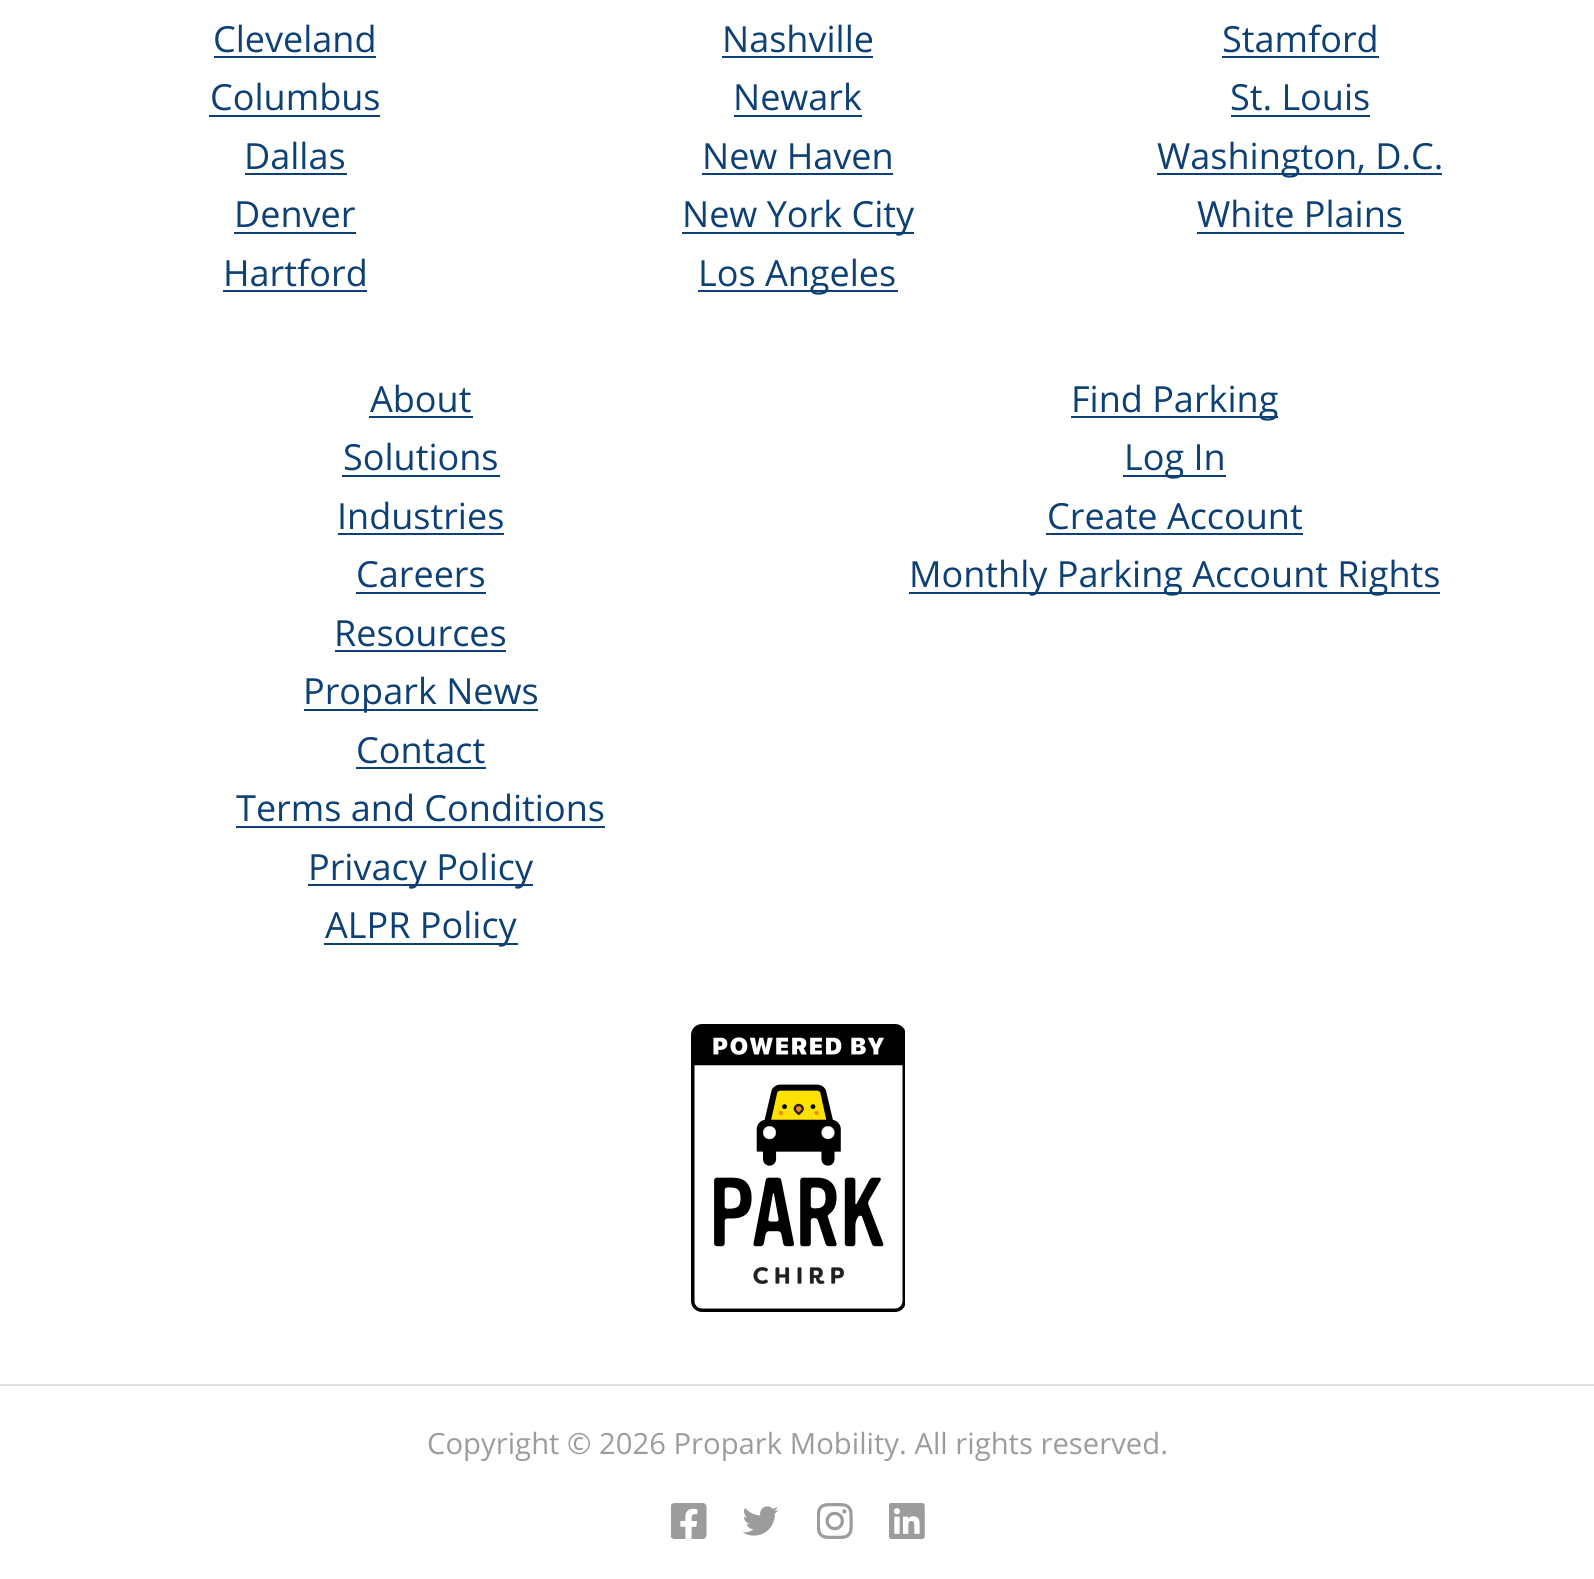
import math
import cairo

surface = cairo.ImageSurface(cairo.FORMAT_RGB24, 1594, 1579)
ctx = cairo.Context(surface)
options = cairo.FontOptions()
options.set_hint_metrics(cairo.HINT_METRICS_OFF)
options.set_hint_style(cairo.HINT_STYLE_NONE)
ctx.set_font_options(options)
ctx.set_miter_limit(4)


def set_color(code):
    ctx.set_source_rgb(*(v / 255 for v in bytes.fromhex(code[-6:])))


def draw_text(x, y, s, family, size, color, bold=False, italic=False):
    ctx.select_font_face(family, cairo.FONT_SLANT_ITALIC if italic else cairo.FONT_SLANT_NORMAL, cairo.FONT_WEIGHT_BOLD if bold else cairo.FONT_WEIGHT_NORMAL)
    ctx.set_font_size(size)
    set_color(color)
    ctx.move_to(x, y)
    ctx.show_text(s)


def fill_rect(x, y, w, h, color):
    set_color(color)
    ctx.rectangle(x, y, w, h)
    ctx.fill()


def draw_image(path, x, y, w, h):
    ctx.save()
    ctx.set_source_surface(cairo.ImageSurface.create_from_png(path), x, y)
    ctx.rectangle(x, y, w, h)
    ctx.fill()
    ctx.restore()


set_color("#ffffff")
ctx.paint()
draw_text(213, 52, "Cleveland", "Open Sans", 36, "#0d4075")
fill_rect(214, 56, 162, 2, "#0d4075")
draw_text(722, 52, "Nashville", "Open Sans", 36, "#0d4075")
fill_rect(722, 56, 151, 2, "#0d4075")
draw_text(1222, 52, "Stamford", "Open Sans", 36, "#0d4075")
fill_rect(1222, 56, 157, 2, "#0d4075")
draw_text(210, 110, "Columbus", "Open Sans", 36, "#0d4075")
fill_rect(209, 115, 171, 2, "#0d4075")
draw_text(733, 110, "Newark", "Open Sans", 36, "#0d4075")
fill_rect(734, 115, 128, 2, "#0d4075")
draw_text(1230, 110, "St. Louis", "Open Sans", 36, "#0d4075")
fill_rect(1231, 115, 139, 2, "#0d4075")
draw_text(244, 169, "Dallas", "Open Sans", 36, "#0d4075")
fill_rect(245, 173, 102, 2, "#0d4075")
draw_text(702, 169, "New Haven", "Open Sans", 36, "#0d4075")
fill_rect(702, 173, 191, 2, "#0d4075")
fill_rect(1157, 173, 285, 2, "#0d4075")
draw_text(1157, 169, "Washington, D.C.", "Open Sans", 36, "#0d4075")
draw_text(234, 227, "Denver", "Open Sans", 36, "#0d4075")
fill_rect(234, 232, 122, 2, "#0d4075")
fill_rect(682, 232, 232, 2, "#0d4075")
draw_text(682, 227, "New York City", "Open Sans", 36, "#0d4075")
draw_text(1197, 227, "White Plains", "Open Sans", 36, "#0d4075")
fill_rect(1197, 232, 207, 2, "#0d4075")
draw_text(223, 286, "Hartford", "Open Sans", 36, "#0d4075")
fill_rect(223, 290, 144, 2, "#0d4075")
fill_rect(698, 290, 200, 2, "#0d4075")
draw_text(698, 286, "Los Angeles", "Open Sans", 36, "#0d4075")
draw_text(370, 412, "About", "Open Sans", 36, "#0d4075")
fill_rect(369, 416, 104, 2, "#0d4075")
draw_text(343, 470, "Solutions", "Open Sans", 36, "#0d4075")
fill_rect(342, 475, 158, 2, "#0d4075")
draw_text(337, 529, "Industries", "Open Sans", 36, "#0d4075")
fill_rect(338, 533, 166, 2, "#0d4075")
draw_text(356, 587, "Careers", "Open Sans", 36, "#0d4075")
fill_rect(356, 592, 130, 2, "#0d4075")
draw_text(334, 646, "Resources", "Open Sans", 36, "#0d4075")
fill_rect(335, 650, 171, 2, "#0d4075")
fill_rect(304, 709, 234, 2, "#0d4075")
draw_text(303, 704, "Propark News", "Open Sans", 36, "#0d4075")
draw_text(356, 763, "Contact", "Open Sans", 36, "#0d4075")
fill_rect(356, 767, 130, 2, "#0d4075")
draw_text(236, 821, "Terms and Conditions", "Open Sans", 36, "#0d4075")
fill_rect(236, 826, 369, 2, "#0d4075")
fill_rect(308, 884, 225, 2, "#0d4075")
draw_text(308, 880, "Privacy Policy", "Open Sans", 36, "#0d4075")
fill_rect(324, 943, 194, 2, "#0d4075")
draw_text(325, 938, "ALPR Policy", "Open Sans", 36, "#0d4075")
fill_rect(1071, 416, 207, 2, "#0d4075")
draw_text(1071, 412, "Find Parking", "Open Sans", 36, "#0d4075")
fill_rect(1123, 475, 103, 2, "#0d4075")
draw_text(1124, 470, "Log In", "Open Sans", 36, "#0d4075")
draw_text(1047, 529, "Create Account", "Open Sans", 36, "#0d4075")
fill_rect(1046, 533, 257, 2, "#0d4075")
fill_rect(909, 592, 531, 2, "#0d4075")
draw_text(909, 587, "Monthly Parking Account Rights", "Open Sans", 36, "#0d4075")
draw_image("assets/img1.png", 691, 1024, 214, 288)
fill_rect(0, 1384, 1594, 2, "#e0e0e0")
draw_text(427, 1454, "Copyright © 2026 Propark Mobility. All rights reserved.", "Open Sans", 29.25, "#9c9c9c")
draw_image("assets/img2.png", 671, 1503, 36, 36)
draw_image("assets/img3.png", 743, 1506, 36, 30)
draw_image("assets/img4.png", 817, 1503, 36, 36)
draw_image("assets/img5.png", 889, 1503, 36, 36)
surface.write_to_png("output.png")
